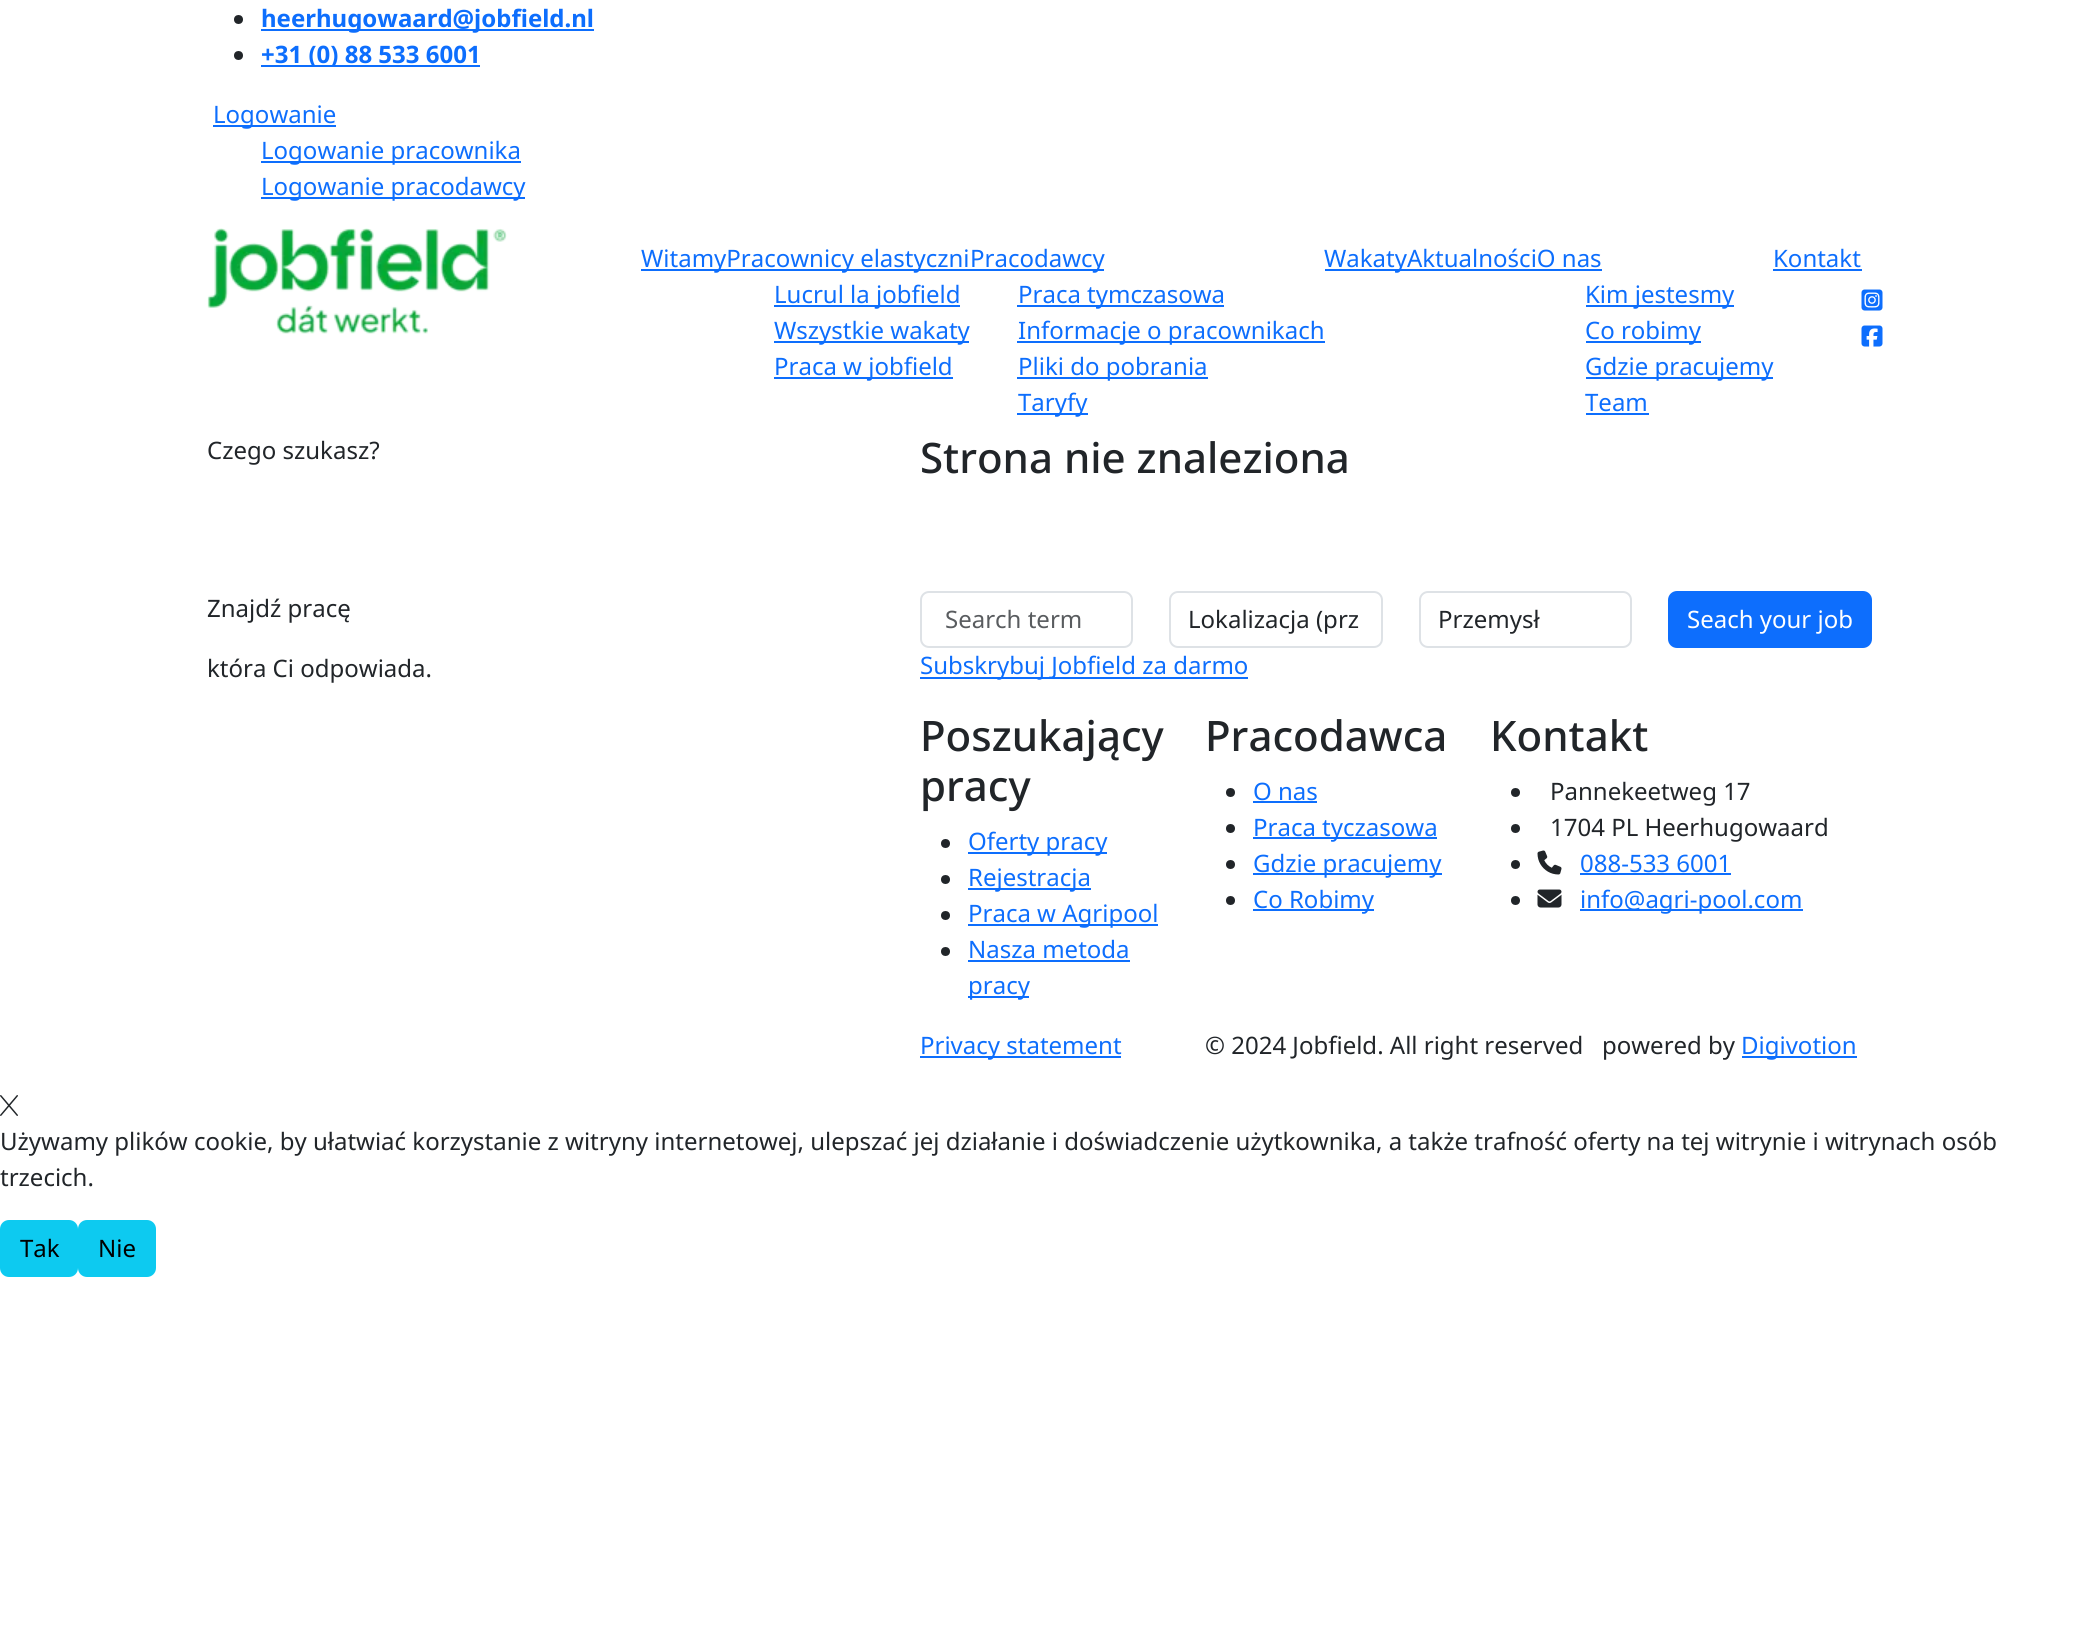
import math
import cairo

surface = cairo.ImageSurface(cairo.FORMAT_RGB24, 2087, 1627)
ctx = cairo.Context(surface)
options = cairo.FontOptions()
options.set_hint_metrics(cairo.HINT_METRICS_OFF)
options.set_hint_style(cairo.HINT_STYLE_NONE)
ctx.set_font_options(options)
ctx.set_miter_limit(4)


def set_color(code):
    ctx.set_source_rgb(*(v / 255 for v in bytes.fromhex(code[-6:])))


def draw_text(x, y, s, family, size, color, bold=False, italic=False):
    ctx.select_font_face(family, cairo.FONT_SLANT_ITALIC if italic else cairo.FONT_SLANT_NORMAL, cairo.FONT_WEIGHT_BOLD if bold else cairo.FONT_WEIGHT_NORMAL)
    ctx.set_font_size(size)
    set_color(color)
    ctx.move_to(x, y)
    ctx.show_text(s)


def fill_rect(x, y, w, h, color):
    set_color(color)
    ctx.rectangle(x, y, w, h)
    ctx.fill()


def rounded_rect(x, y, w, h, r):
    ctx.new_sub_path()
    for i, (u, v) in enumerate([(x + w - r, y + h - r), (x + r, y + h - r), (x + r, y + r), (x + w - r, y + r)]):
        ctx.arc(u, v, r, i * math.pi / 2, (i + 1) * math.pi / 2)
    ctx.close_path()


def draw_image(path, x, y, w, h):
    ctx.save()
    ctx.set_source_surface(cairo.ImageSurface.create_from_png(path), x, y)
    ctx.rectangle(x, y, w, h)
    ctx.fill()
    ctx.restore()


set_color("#ffffff")
ctx.paint()
set_color("#212529")
ctx.arc(238.5, 19.5, 4.5, 0, 2 * math.pi)
ctx.fill()
fill_rect(261, 29, 333, 2, "#0d6efd")
draw_text(261, 27, "heerhugowaard@jobfield.nl", "Noto Sans", 24, "#0d6efd", bold=True)
set_color("#212529")
ctx.new_path()
ctx.arc(238.5, 55.5, 4.5, 0, 2 * math.pi)
ctx.fill()
fill_rect(261, 65, 219, 2, "#0d6efd")
draw_text(261, 63, "+31 (0) 88 533 6001", "Noto Sans", 24, "#0d6efd", bold=True)
fill_rect(213, 125, 123, 2, "#0d6efd")
draw_text(213, 123, "Logowanie", "Noto Sans", 24, "#0d6efd")
fill_rect(261, 161, 260, 2, "#0d6efd")
draw_text(261, 159, "Logowanie pracownika", "Noto Sans", 24, "#0d6efd")
fill_rect(261, 197, 264, 2, "#0d6efd")
draw_text(261, 195, "Logowanie pracodawcy", "Noto Sans", 24, "#0d6efd")
draw_image("assets/img1.png", 207, 228, 300, 106)
fill_rect(641, 269, 463, 2, "#0d6efd")
draw_text(641, 267, "WitamyPracownicy elastyczni", "Noto Sans", 24, "#0d6efd")
draw_text(970, 267, "Pracodawcy", "Noto Sans", 24, "#0d6efd")
fill_rect(1017, 305, 207, 2, "#0d6efd")
draw_text(1018, 303, "Praca tymczasowa", "Noto Sans", 24, "#0d6efd")
fill_rect(1017, 341, 308, 2, "#0d6efd")
draw_text(1018, 339, "Informacje o pracownikach", "Noto Sans", 24, "#0d6efd")
fill_rect(1017, 377, 191, 2, "#0d6efd")
draw_text(1018, 375, "Pliki do pobrania", "Noto Sans", 24, "#0d6efd")
fill_rect(1017, 413, 71, 2, "#0d6efd")
draw_text(1018, 411, "Taryfy", "Noto Sans", 24, "#0d6efd")
fill_rect(1325, 269, 82, 2, "#0d6efd")
draw_text(1324, 267, "WakatyAktualnościO nas", "Noto Sans", 24, "#0d6efd")
draw_text(1773, 267, "Kontakt", "Noto Sans", 24, "#0d6efd")
fill_rect(1773, 269, 89, 2, "#0d6efd")
fill_rect(1407, 269, 195, 2, "#0d6efd")
fill_rect(774, 305, 186, 2, "#0d6efd")
draw_text(774, 303, "Lucrul la jobfield", "Noto Sans", 24, "#0d6efd")
fill_rect(774, 341, 195, 2, "#0d6efd")
draw_text(774, 339, "Wszystkie wakaty", "Noto Sans", 24, "#0d6efd")
fill_rect(774, 377, 179, 2, "#0d6efd")
draw_text(774, 375, "Praca w jobfield", "Noto Sans", 24, "#0d6efd")
fill_rect(1586, 305, 148, 2, "#0d6efd")
draw_text(1585, 303, "Kim jestesmy", "Noto Sans", 24, "#0d6efd")
fill_rect(1586, 341, 115, 2, "#0d6efd")
draw_text(1585, 339, "Co robimy", "Noto Sans", 24, "#0d6efd")
fill_rect(1586, 377, 187, 2, "#0d6efd")
draw_text(1585, 375, "Gdzie pracujemy", "Noto Sans", 24, "#0d6efd")
draw_text(1585, 411, "Team", "Noto Sans", 24, "#0d6efd")
fill_rect(1586, 413, 63, 2, "#0d6efd")
draw_image("assets/img2.png", 1861, 289, 22, 22)
draw_image("assets/img3.png", 1861, 325, 22, 22)
draw_text(207, 459, "Czego szukasz?", "Noto Sans", 24, "#212529")
draw_text(920, 473, "Strona nie znaleziona", "Noto Sans Medium", 42, "#212529")
draw_text(207, 617, "Znajdź pracę", "Noto Sans", 24, "#212529")
draw_text(207, 677, "która Ci odpowiada.", "Noto Sans", 24, "#212529")
rounded_rect(921, 592, 211, 55, 8)
set_color("#dee2e6")
ctx.stroke()
draw_text(945, 628, "Search term", "Noto Sans", 24, "#595c5f")
rounded_rect(1170, 592, 212, 55, 8)
set_color("#dee2e6")
ctx.stroke()
draw_text(1188, 628, "Lokalizacja (prz", "Noto Sans", 24, "#212529")
rounded_rect(1420, 592, 211, 55, 8)
set_color("#dee2e6")
ctx.stroke()
draw_text(1438, 628, "Przemysł", "Noto Sans", 24, "#212529")
set_color("#0d6efd")
rounded_rect(1669, 592, 202, 55, 8)
ctx.fill_preserve()
ctx.stroke()
draw_text(1687, 628, "Seach your job", "Noto Sans", 24, "#ffffff")
fill_rect(920, 677, 328, 2, "#0d6efd")
draw_text(920, 674, "Subskrybuj Jobfield za darmo", "Noto Sans", 24, "#0d6efd")
draw_text(920, 751, "Poszukający", "Noto Sans Medium", 42, "#212529")
draw_text(920, 801, "pracy", "Noto Sans Medium", 42, "#212529")
ctx.new_path()
ctx.arc(945.5, 843.5, 4.5, 0, 2 * math.pi)
ctx.fill()
fill_rect(968, 852, 139, 2, "#0d6efd")
draw_text(968, 850, "Oferty pracy", "Noto Sans", 24, "#0d6efd")
set_color("#212529")
ctx.new_path()
ctx.arc(945.5, 879.5, 4.5, 0, 2 * math.pi)
ctx.fill()
fill_rect(968, 888, 123, 2, "#0d6efd")
draw_text(968, 886, "Rejestracja", "Noto Sans", 24, "#0d6efd")
set_color("#212529")
ctx.new_path()
ctx.arc(945.5, 915.5, 4.5, 0, 2 * math.pi)
ctx.fill()
fill_rect(968, 924, 190, 2, "#0d6efd")
draw_text(968, 922, "Praca w Agripool", "Noto Sans", 24, "#0d6efd")
set_color("#212529")
ctx.new_path()
ctx.arc(945.5, 951.5, 4.5, 0, 2 * math.pi)
ctx.fill()
draw_text(968, 958, "Nasza metoda", "Noto Sans", 24, "#0d6efd")
fill_rect(968, 960, 162, 2, "#0d6efd")
fill_rect(968, 996, 61, 2, "#0d6efd")
draw_text(968, 994, "pracy", "Noto Sans", 24, "#0d6efd")
draw_text(1205, 751, "Pracodawca", "Noto Sans Medium", 42, "#212529")
ctx.new_path()
ctx.arc(1230.5, 792.5, 4.5, 0, 2 * math.pi)
ctx.fill()
draw_text(1253, 800, "O nas", "Noto Sans", 24, "#0d6efd")
fill_rect(1253, 801, 64, 2, "#0d6efd")
set_color("#212529")
ctx.new_path()
ctx.arc(1230.5, 828.5, 4.5, 0, 2 * math.pi)
ctx.fill()
fill_rect(1253, 837, 184, 2, "#0d6efd")
draw_text(1253, 836, "Praca tyczasowa", "Noto Sans", 24, "#0d6efd")
set_color("#212529")
ctx.new_path()
ctx.arc(1230.5, 864.5, 4.5, 0, 2 * math.pi)
ctx.fill()
fill_rect(1253, 873, 189, 2, "#0d6efd")
draw_text(1253, 872, "Gdzie pracujemy", "Noto Sans", 24, "#0d6efd")
set_color("#212529")
ctx.new_path()
ctx.arc(1230.5, 900.5, 4.5, 0, 2 * math.pi)
ctx.fill()
fill_rect(1253, 909, 121, 2, "#0d6efd")
draw_text(1253, 908, "Co Robimy", "Noto Sans", 24, "#0d6efd")
draw_text(1490, 751, "Kontakt", "Noto Sans Medium", 42, "#212529")
ctx.new_path()
ctx.arc(1515.5, 792.5, 4.5, 0, 2 * math.pi)
ctx.fill()
draw_text(1550, 800, "Pannekeetweg 17", "Noto Sans", 24, "#212529")
ctx.new_path()
ctx.arc(1515.5, 828.5, 4.5, 0, 2 * math.pi)
ctx.fill()
draw_text(1550, 836, "1704 PL Heerhugowaard", "Noto Sans", 24, "#212529")
ctx.new_path()
ctx.arc(1515.5, 864.5, 4.5, 0, 2 * math.pi)
ctx.fill()
draw_image("assets/img4.png", 1537, 850, 25, 25)
draw_text(1580, 872, "088-533 6001", "Noto Sans", 24, "#0d6efd")
fill_rect(1580, 873, 151, 2, "#0d6efd")
set_color("#212529")
ctx.new_path()
ctx.arc(1515.5, 900.5, 4.5, 0, 2 * math.pi)
ctx.fill()
draw_image("assets/img5.png", 1537, 889, 25, 19)
fill_rect(1580, 909, 223, 2, "#0d6efd")
draw_text(1580, 908, "info@agri-pool.com", "Noto Sans", 24, "#0d6efd")
fill_rect(920, 1056, 201, 2, "#0d6efd")
draw_text(920, 1054, "Privacy statement", "Noto Sans", 24, "#0d6efd")
draw_text(1205, 1054, "© 2024 Jobfield. All right reserved   powered by", "Noto Sans", 24, "#212529")
fill_rect(1742, 1056, 115, 2, "#0d6efd")
draw_text(1741, 1054, "Digivotion", "Noto Sans", 24, "#0d6efd")
draw_image("assets/img6.png", 0, 1095, 18, 21)
draw_text(0, 1150, "Używamy plików cookie, by ułatwiać korzystanie z witryny internetowej, ulepszać jej działanie i doświadczenie użytkownika, a także trafność oferty na tej witrynie i witrynach osób", "Noto Sans", 24, "#212529")
draw_text(0, 1186, "trzecich.", "Noto Sans", 24, "#212529")
set_color("#0dcaf0")
rounded_rect(1, 1221, 76, 55, 8)
ctx.fill_preserve()
ctx.stroke()
draw_text(20, 1257, "Tak", "Noto Sans", 24, "#000000")
set_color("#0dcaf0")
rounded_rect(79, 1221, 76, 55, 8)
ctx.fill_preserve()
ctx.stroke()
draw_text(98, 1257, "Nie", "Noto Sans", 24, "#000000")
surface.write_to_png("output.png")
